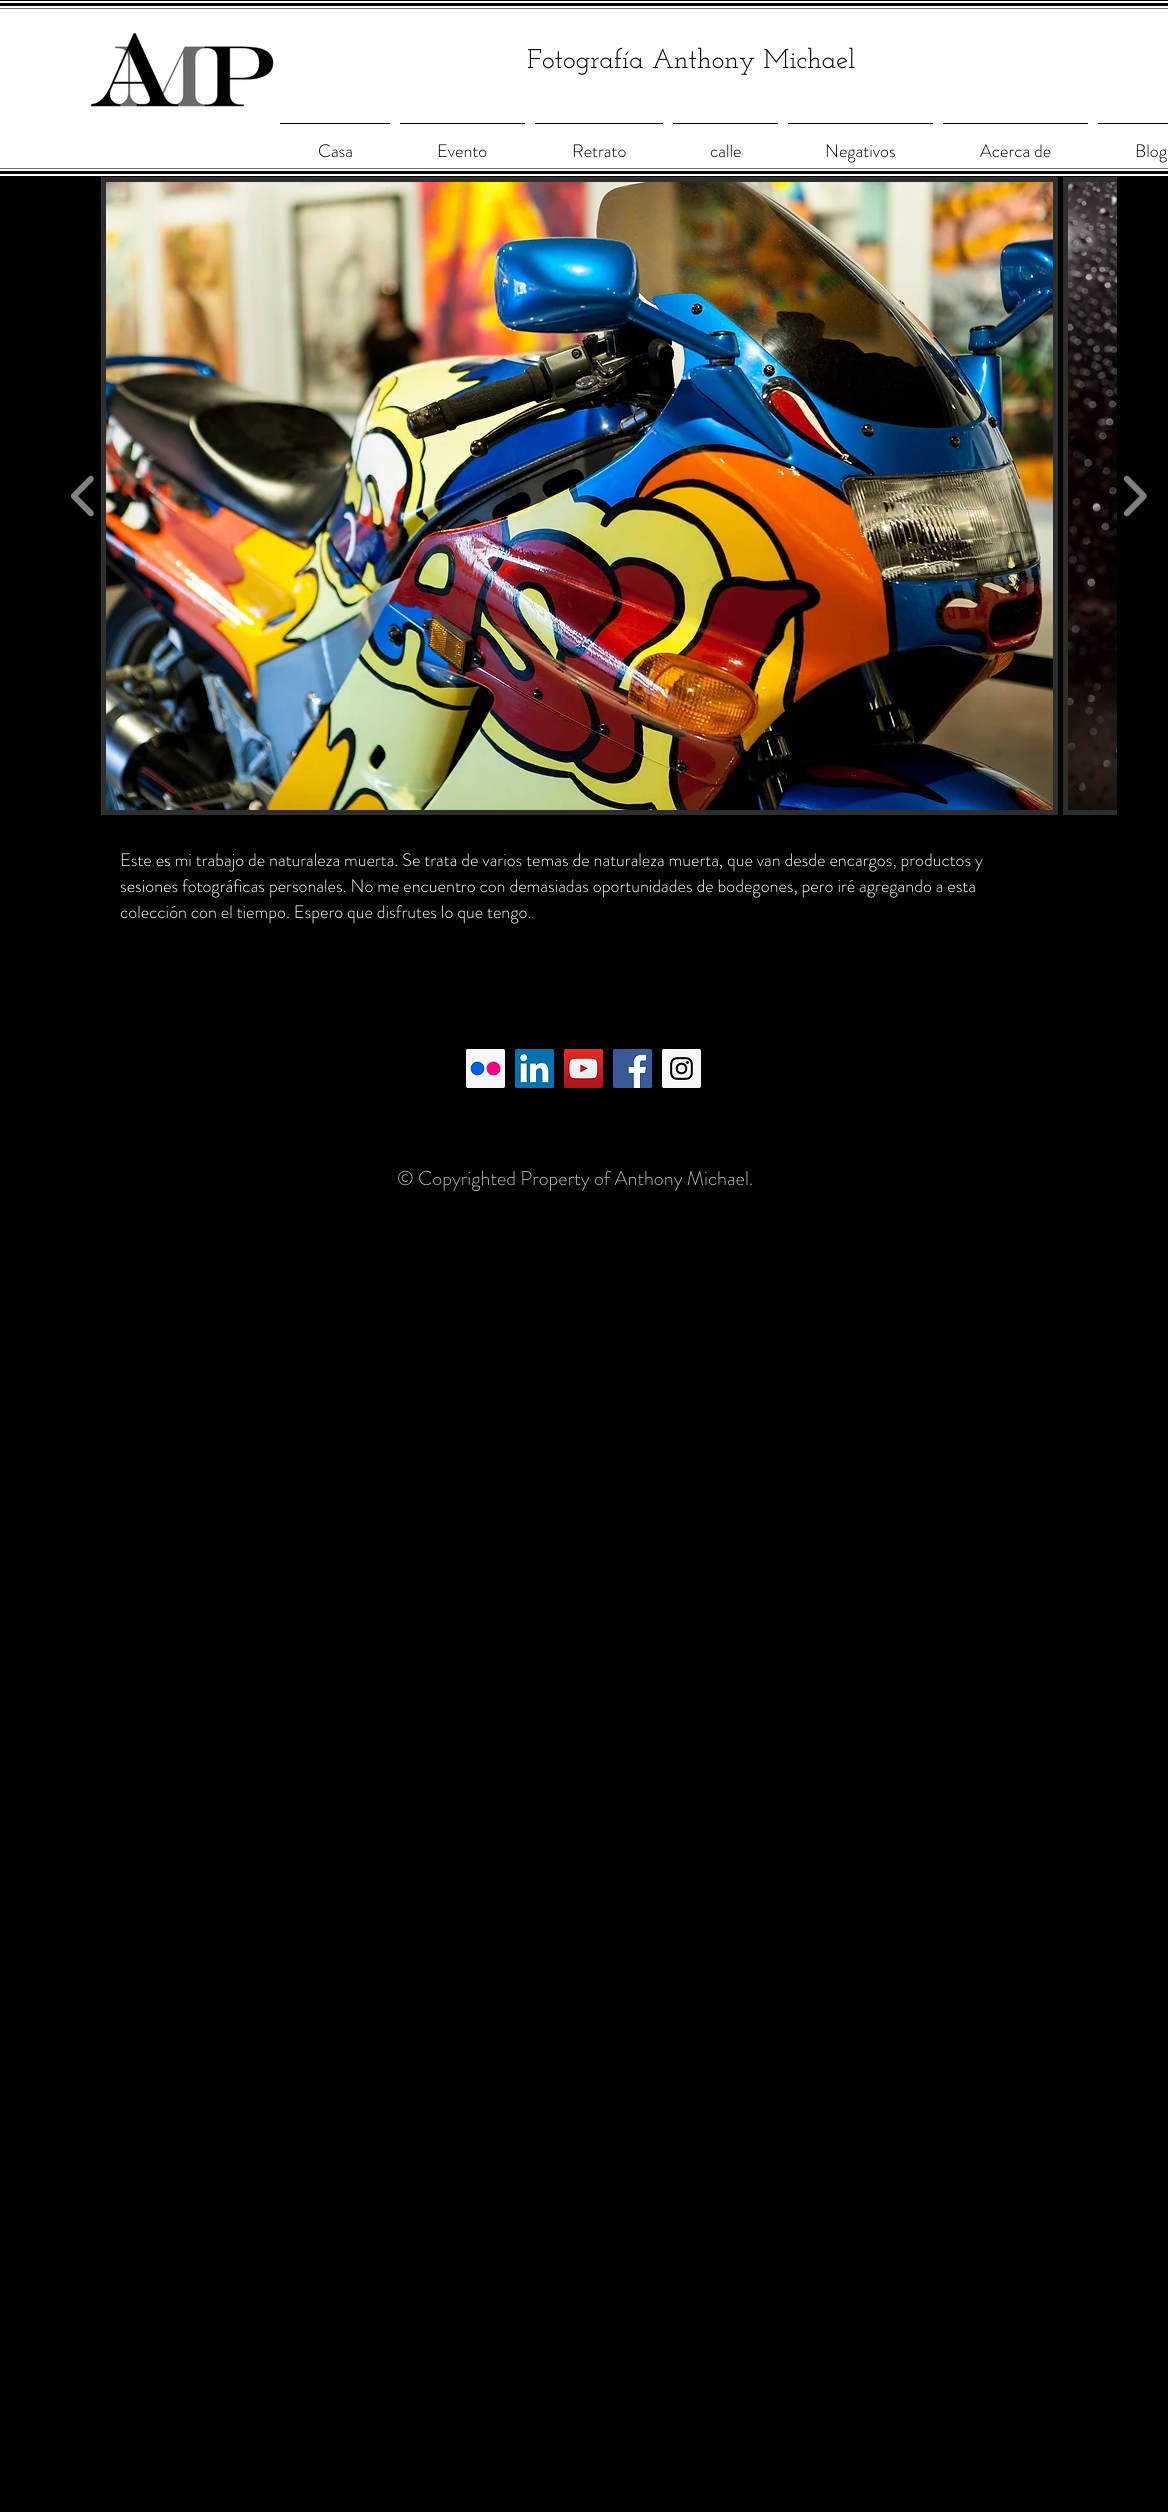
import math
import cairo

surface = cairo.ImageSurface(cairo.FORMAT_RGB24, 1168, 2512)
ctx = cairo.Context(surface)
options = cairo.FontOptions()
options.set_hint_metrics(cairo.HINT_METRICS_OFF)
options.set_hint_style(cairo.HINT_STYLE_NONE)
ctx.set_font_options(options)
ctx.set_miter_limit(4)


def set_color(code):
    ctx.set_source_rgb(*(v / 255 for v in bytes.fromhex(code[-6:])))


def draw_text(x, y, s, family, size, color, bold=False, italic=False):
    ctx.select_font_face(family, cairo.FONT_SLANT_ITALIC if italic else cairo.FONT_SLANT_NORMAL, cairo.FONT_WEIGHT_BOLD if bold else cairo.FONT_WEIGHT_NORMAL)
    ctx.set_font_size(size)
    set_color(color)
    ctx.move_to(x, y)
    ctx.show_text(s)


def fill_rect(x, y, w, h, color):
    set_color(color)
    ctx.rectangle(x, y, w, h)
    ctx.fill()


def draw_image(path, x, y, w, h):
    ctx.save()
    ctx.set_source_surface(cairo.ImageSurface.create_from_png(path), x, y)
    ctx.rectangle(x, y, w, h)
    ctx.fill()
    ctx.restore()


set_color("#000000")
ctx.paint()
fill_rect(0, 1, 1168, 175, "#ffffff")
fill_rect(0, 3, 1168, 3, "#000000")
fill_rect(0, 171, 1168, 3, "#000000")
fill_rect(0, 8, 1168, 1, "#717070")
fill_rect(0, 168, 1168, 1, "#717070")
draw_image("assets/img1.png", 91, 33, 183, 74)
draw_text(527, 68, "Fotografía Anthony Michael", "Josefin Slab", 27, "#000000")
fill_rect(280, 123, 110, 1, "#000000")
draw_text(318, 157, "Casa", "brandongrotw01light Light", 18, "#000000")
fill_rect(400, 123, 125, 1, "#000000")
draw_text(437, 157, "Evento", "brandongrotw01light Light", 18, "#000000")
fill_rect(535, 123, 128, 1, "#000000")
draw_text(572, 157, "Retrato", "brandongrotw01light Light", 18, "#000000")
fill_rect(673, 123, 105, 1, "#000000")
draw_text(710, 157, "calle", "brandongrotw01light Light", 18, "#000000")
fill_rect(788, 123, 145, 1, "#000000")
draw_text(825, 157, "Negativos", "brandongrotw01light Light", 18, "#000000")
fill_rect(943, 123, 145, 1, "#000000")
draw_text(980, 157, "Acerca de", "brandongrotw01light Light", 18, "#000000")
fill_rect(1098, 123, 70, 1, "#000000")
draw_text(1135, 157, "Blog", "brandongrotw01light Light", 18, "#000000")
draw_image("assets/img2.png", 70, 475, 24, 42)
fill_rect(101, 177, 957, 638, "#2f2e2e")
draw_image("assets/img3.png", 106, 182, 947, 628)
fill_rect(1063, 177, 54, 638, "#2f2e2e")
draw_image("assets/img4.png", 1068, 182, 49, 628)
draw_image("assets/img5.png", 1123, 475, 24, 42)
draw_text(120, 866, "Este es mi trabajo de naturaleza muerta. Se trata de varios temas de naturaleza muerta, que van desde encargos, productos y", "brandongrotw01light Light", 18, "#ffffff")
draw_text(120, 892, "sesiones fotográficas personales. No me encuentro con demasiadas oportunidades de bodegones, pero iré agregando a esta", "brandongrotw01light Light", 18, "#ffffff")
draw_text(120, 918, "colección con el tiempo. Espero que disfrutes lo que tengo.", "brandongrotw01light Light", 18, "#ffffff")
draw_image("assets/img6.png", 466, 1049, 39, 39)
draw_image("assets/img7.png", 515, 1049, 39, 39)
draw_image("assets/img8.png", 564, 1049, 39, 39)
draw_image("assets/img9.png", 613, 1049, 39, 39)
draw_image("assets/img10.png", 662, 1049, 39, 39)
draw_text(397, 1185, "© Copyrighted Property of Anthony Michael.", "brandongrotw01light Light", 20, "#b9b9b9")
surface.write_to_png("output.png")
